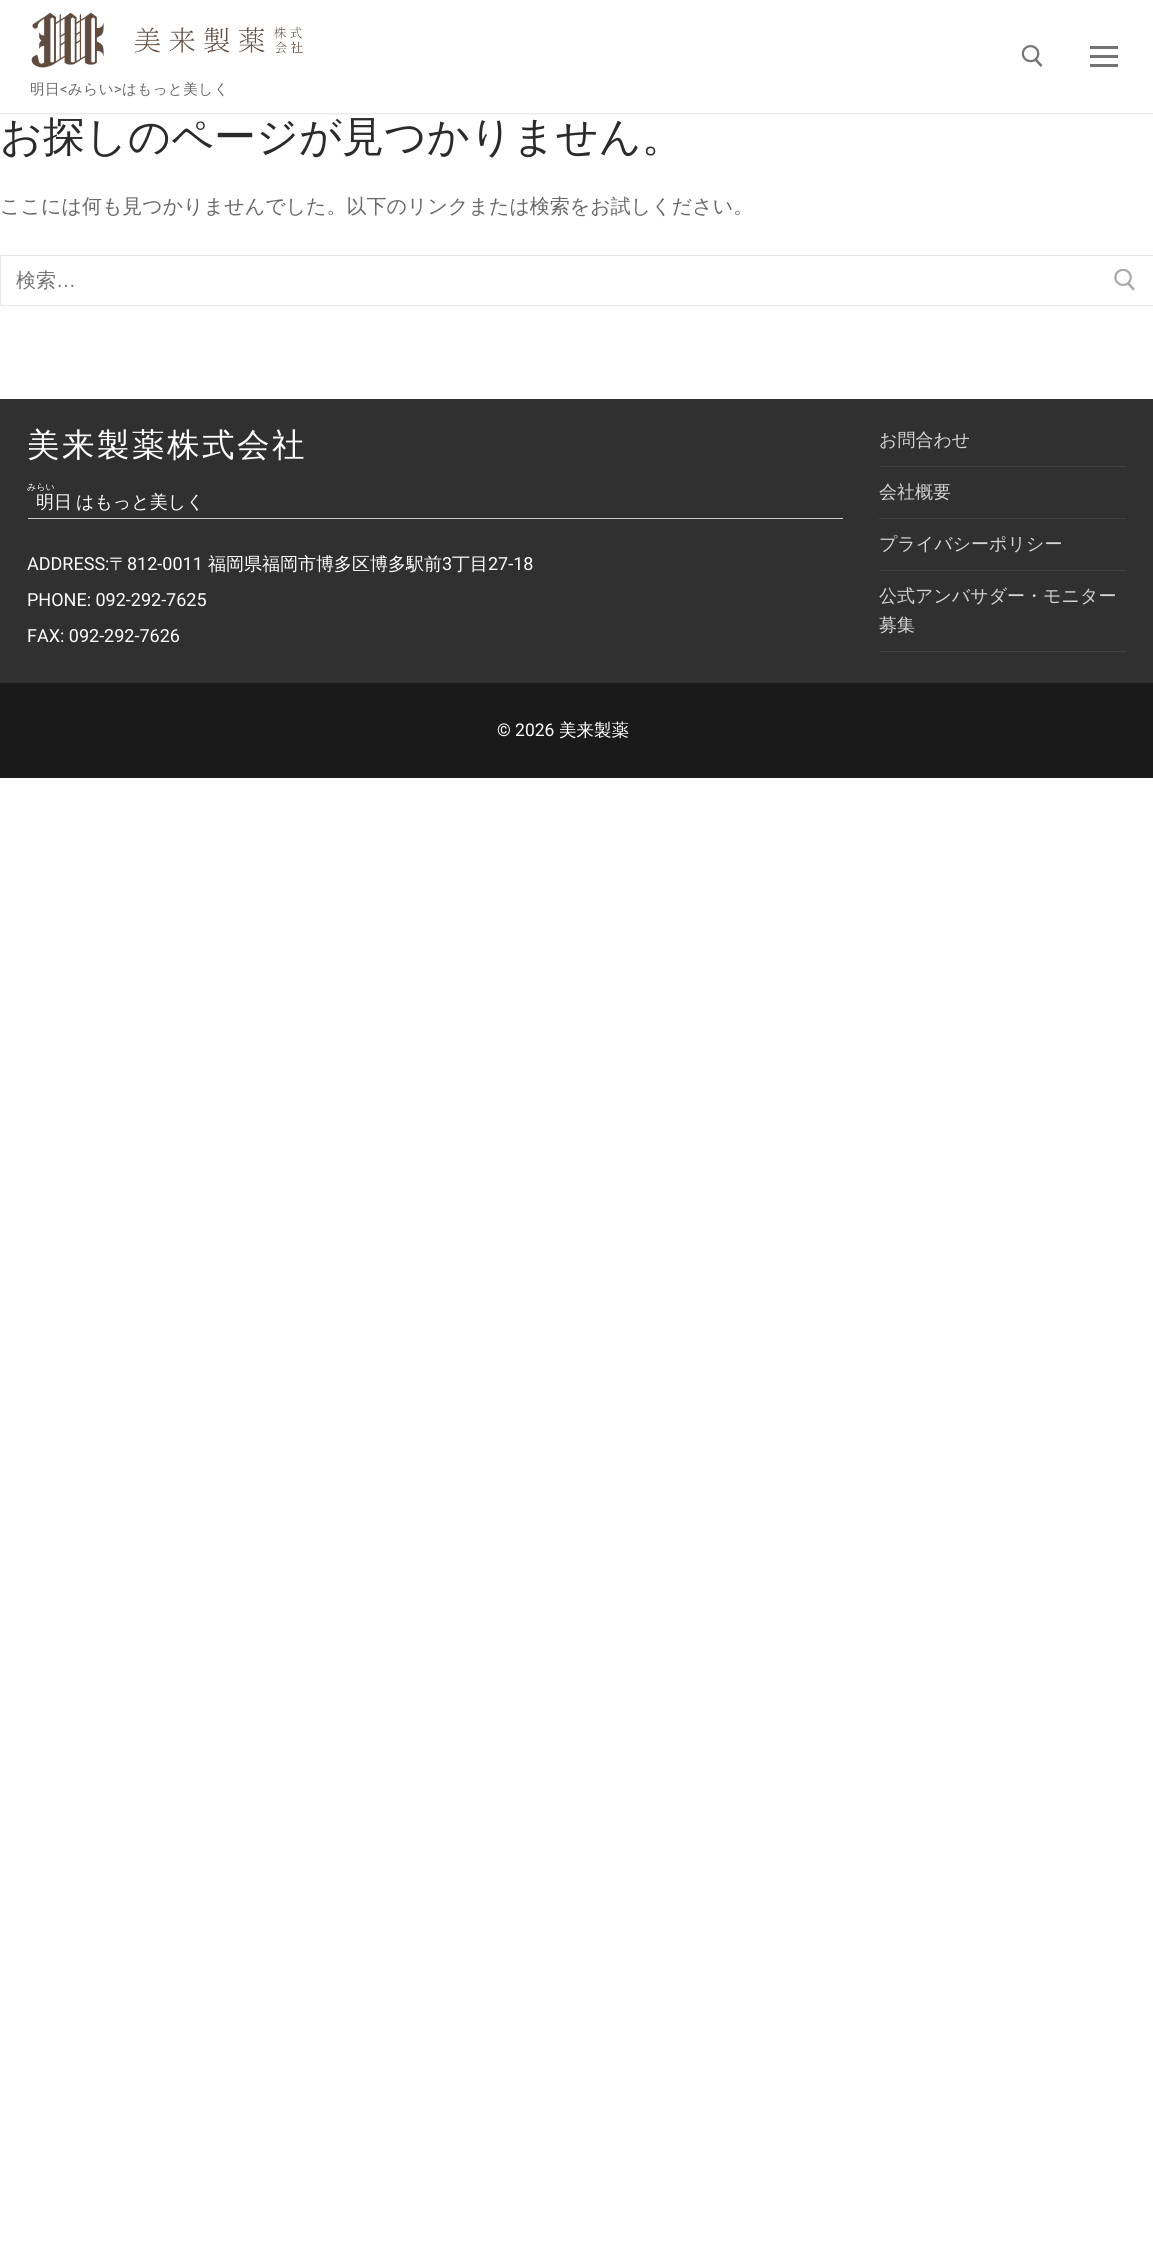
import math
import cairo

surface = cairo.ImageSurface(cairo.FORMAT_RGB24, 1153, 2249)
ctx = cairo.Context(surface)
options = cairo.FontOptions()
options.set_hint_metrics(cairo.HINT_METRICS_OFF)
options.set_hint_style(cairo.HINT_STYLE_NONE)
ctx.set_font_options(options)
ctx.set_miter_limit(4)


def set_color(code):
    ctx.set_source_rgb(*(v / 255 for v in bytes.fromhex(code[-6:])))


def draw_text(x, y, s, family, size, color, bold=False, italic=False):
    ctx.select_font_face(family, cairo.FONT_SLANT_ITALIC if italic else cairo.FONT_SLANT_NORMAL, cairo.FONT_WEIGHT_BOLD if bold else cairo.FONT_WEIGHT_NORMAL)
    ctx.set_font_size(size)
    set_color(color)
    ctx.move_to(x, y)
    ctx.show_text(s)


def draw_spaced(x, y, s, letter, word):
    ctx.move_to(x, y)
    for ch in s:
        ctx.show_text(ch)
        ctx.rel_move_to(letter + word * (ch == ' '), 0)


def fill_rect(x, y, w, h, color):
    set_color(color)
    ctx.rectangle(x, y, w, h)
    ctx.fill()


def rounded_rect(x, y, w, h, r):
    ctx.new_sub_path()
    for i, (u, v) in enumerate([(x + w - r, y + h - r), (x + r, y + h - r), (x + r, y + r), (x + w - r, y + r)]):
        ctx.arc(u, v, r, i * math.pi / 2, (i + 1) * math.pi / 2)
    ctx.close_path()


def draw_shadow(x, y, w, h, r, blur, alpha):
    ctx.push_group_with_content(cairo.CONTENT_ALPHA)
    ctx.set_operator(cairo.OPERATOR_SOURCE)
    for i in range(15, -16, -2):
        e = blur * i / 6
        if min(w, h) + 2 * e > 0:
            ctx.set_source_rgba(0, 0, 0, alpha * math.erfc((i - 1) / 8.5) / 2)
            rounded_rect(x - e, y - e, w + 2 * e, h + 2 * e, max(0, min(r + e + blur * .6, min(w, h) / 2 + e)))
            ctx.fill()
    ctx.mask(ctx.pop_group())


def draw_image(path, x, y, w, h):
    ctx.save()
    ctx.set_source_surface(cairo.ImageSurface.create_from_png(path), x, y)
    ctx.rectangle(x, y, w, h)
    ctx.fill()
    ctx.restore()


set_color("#ffffff")
ctx.paint()
set_color("#e1e5ea")
draw_shadow(0, 1, 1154, 113, 0, 1, 1)
fill_rect(0, 0, 1153, 113, "#ffffff")
draw_image("assets/img1.png", 1021, 45, 22, 22)
fill_rect(1090, 55, 28, 3, "#737373")
fill_rect(1090, 46, 28, 3, "#737373")
fill_rect(1090, 64, 28, 3, "#737373")
draw_image("assets/img2.png", 31, 12, 272, 56)
ctx.select_font_face("WenQuanYi Zen Hei Medium")
ctx.set_font_size(14.5)
set_color("#686868")
draw_spaced(30, 94, "明日", 0.5, 0)
ctx.select_font_face("Roboto")
draw_spaced(60, 94, "<", 0.5, 0)
ctx.select_font_face("WenQuanYi Zen Hei Medium")
draw_spaced(68, 94, "みらい", 0.5, 0)
ctx.select_font_face("Roboto")
draw_spaced(114, 94, ">", 0.5, 0)
ctx.select_font_face("WenQuanYi Zen Hei Medium")
draw_spaced(122, 94, "はもっと美しく", 0.5, 0)
draw_text(0, 151, "お探しのページが見つかりません。", "WenQuanYi Zen Hei Medium", 42, "#2b2b2b")
draw_text(0, 213, "ここには何も見つかりませんでした。以下のリンクまたは検索をお試しください。", "WenQuanYi Zen Hei Medium", 20, "#686868")
rounded_rect(0.5, 255.5, 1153, 50, 0.5)
set_color("#e5e5e5")
ctx.set_line_width(1)
ctx.stroke()
draw_text(16, 287, "検索", "WenQuanYi Zen Hei Medium", 20, "#757575")
draw_text(56, 287, "…", "Liberation Sans", 20, "#757575")
draw_image("assets/img3.png", 1114, 269, 21, 22)
fill_rect(0, 399, 1153, 284, "#303030")
ctx.select_font_face("WenQuanYi Zen Hei Medium")
ctx.set_font_size(32.5)
set_color("#ffffff")
draw_spaced(27, 456, "美来製薬株式会社", 2.5, 0)
draw_text(27, 490, "みらい", "WenQuanYi Zen Hei Medium", 9, "#ffffff")
draw_text(36, 508, "明日", "WenQuanYi Zen Hei Medium", 18, "#ffffff")
draw_text(76, 508, "はもっと美しく", "WenQuanYi Zen Hei Medium", 18, "#ffffff")
fill_rect(28, 518, 815, 1, "#cccccc")
draw_text(27, 570, "ADDRESS:", "Roboto", 18, "#ffffff")
draw_text(109, 570, "〒", "WenQuanYi Zen Hei Medium", 18, "#ffffff")
draw_text(127, 570, "812-0011", "Roboto", 18, "#ffffff")
draw_text(208, 570, "福岡県福岡市博多区博多駅前", "WenQuanYi Zen Hei Medium", 18, "#ffffff")
draw_text(442, 570, "3", "Roboto", 18, "#ffffff")
draw_text(452, 570, "丁目", "WenQuanYi Zen Hei Medium", 18, "#ffffff")
draw_text(488, 570, "27-18", "Roboto", 18, "#ffffff")
draw_text(27, 606, "PHONE: 092-292-7625", "Roboto", 18, "#ffffff")
draw_text(27, 642, "FAX: 092-292-7626", "Roboto", 18, "#ffffff")
fill_rect(879, 466, 247, 1, "#414141")
draw_text(879, 446, "お問合わせ", "WenQuanYi Zen Hei Medium", 18, "#d4d4d4")
fill_rect(879, 518, 247, 1, "#414141")
draw_text(879, 498, "会社概要", "WenQuanYi Zen Hei Medium", 18, "#d4d4d4")
fill_rect(879, 570, 247, 1, "#414141")
draw_text(879, 550, "プライバシーポリシー", "WenQuanYi Zen Hei Medium", 18, "#d4d4d4")
fill_rect(879, 651, 247, 1, "#414141")
draw_text(879, 602, "公式アンバサダー・モニター", "WenQuanYi Zen Hei Medium", 18, "#d4d4d4")
draw_text(879, 631, "募集", "WenQuanYi Zen Hei Medium", 18, "#d4d4d4")
fill_rect(0, 683, 1153, 95, "#1a1a1a")
draw_text(497, 736, "© 2026", "Roboto", 17.5, "#ffffff")
draw_text(559, 736, "美来製薬", "WenQuanYi Zen Hei Medium", 17.5, "#ffffff")
surface.write_to_png("output.png")
